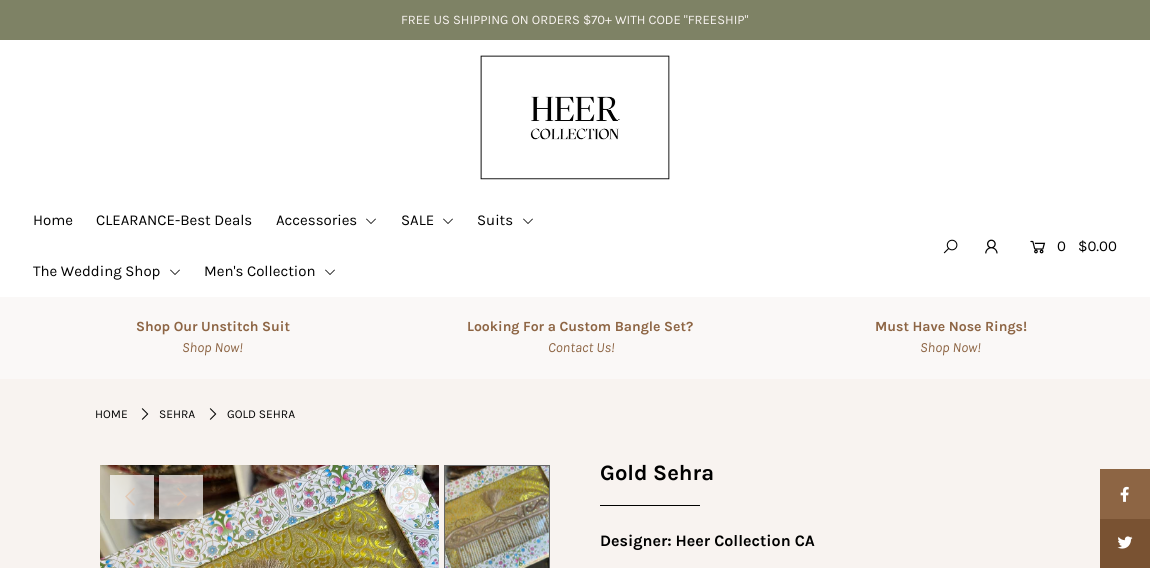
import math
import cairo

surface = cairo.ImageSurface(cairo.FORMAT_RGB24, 1150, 568)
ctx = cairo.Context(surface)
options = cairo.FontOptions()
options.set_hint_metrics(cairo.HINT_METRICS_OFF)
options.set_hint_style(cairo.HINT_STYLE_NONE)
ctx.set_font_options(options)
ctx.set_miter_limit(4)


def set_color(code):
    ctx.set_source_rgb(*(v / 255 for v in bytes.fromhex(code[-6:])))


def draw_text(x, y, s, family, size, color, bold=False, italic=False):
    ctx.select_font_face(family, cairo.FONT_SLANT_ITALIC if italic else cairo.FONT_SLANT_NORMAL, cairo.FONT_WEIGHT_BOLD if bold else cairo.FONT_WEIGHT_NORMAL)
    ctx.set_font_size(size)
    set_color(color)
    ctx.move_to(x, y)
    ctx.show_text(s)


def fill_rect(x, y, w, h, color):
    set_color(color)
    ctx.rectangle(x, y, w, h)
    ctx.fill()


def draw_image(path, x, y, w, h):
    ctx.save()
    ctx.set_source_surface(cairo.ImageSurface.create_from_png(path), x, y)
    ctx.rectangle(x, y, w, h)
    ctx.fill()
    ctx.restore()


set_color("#f8f3f0")
ctx.paint()
fill_rect(0, 40, 1150, 257, "#ffffff")
fill_rect(0, 0, 1150, 40, "#7e8265")
draw_text(401, 24, "FREE US SHIPPING ON ORDERS $70+ WITH CODE \"FREESHIP\"", "Karla", 13, "#f8f3f0")
draw_image("assets/img1.png", 480, 55, 190, 125)
draw_text(33, 225, "Home", "Karla", 15, "#000000")
draw_text(96, 225, "CLEARANCE-Best Deals", "Karla", 15, "#000000")
draw_text(276, 225, "Accessories", "Karla", 15, "#000000")
draw_image("assets/img2.png", 366, 218, 10, 6)
draw_text(401, 225, "SALE", "Karla", 15, "#000000")
draw_image("assets/img2.png", 443, 218, 10, 6)
draw_text(477, 225, "Suits", "Karla", 15, "#000000")
draw_image("assets/img2.png", 523, 218, 10, 6)
draw_text(33, 276, "The Wedding Shop", "Karla", 15, "#000000")
draw_image("assets/img2.png", 170, 269, 10, 6)
draw_text(204, 276, "Men's Collection", "Karla", 15, "#000000")
draw_image("assets/img2.png", 325, 269, 10, 6)
draw_image("assets/img3.png", 943, 239, 15, 15)
draw_image("assets/img4.png", 985, 239, 13, 15)
draw_image("assets/img5.png", 1030, 240, 16, 14)
draw_text(1057, 251, "0", "Karla", 15, "#000000")
draw_text(1078, 251, "$0.00", "Karla", 15, "#000000")
fill_rect(0, 297, 1150, 82, "#faf8f7")
draw_text(136, 331, "Shop Our Unstitch Suit", "Karla", 14, "#8d6544", bold=True)
draw_text(182, 352, "Shop Now!", "Karla", 14, "#8d6544", italic=True)
draw_text(467, 331, "Looking For a Custom Bangle Set?", "Karla", 14, "#8d6544", bold=True)
draw_text(548, 352, "Contact Us!", "Karla", 14, "#8d6544", italic=True)
draw_text(875, 331, "Must Have Nose Rings!", "Karla", 14, "#8d6544", bold=True)
draw_text(920, 352, "Shop Now!", "Karla", 14, "#8d6544", italic=True)
draw_text(95, 418, "HOME", "Karla", 12, "#000000")
draw_image("assets/img6.png", 141, 408, 8, 12)
draw_text(159, 418, "SEHRA", "Karla", 12, "#000000")
draw_image("assets/img6.png", 209, 408, 8, 12)
draw_text(227, 418, "GOLD SEHRA", "Karla", 12, "#000000")
draw_image("assets/img7.png", 100, 465, 339, 103)
ctx.set_source_rgba(1, 1, 1, 0.7)
ctx.arc(407, 497, 22, 0, 2 * math.pi)
ctx.fill()
draw_image("assets/img8.png", 398, 486, 18, 19)
ctx.rectangle(110, 475, 44, 44)
ctx.fill()
ctx.set_source_rgba(0.882, 0.753, 0.651, 0.7)
ctx.new_path()
ctx.move_to(134, 487.5)
ctx.line_to(135, 488.5)
ctx.line_to(127, 496.5)
ctx.line_to(135, 504.5)
ctx.line_to(134, 506)
ctx.line_to(125, 496.5)
ctx.close_path()
ctx.fill()
ctx.set_source_rgba(1, 1, 1, 0.7)
ctx.rectangle(159, 475, 44, 44)
ctx.fill()
ctx.set_source_rgba(0.882, 0.753, 0.651, 0.7)
ctx.new_path()
ctx.move_to(178, 487.5)
ctx.line_to(187, 496.5)
ctx.line_to(178, 506)
ctx.line_to(177, 504.5)
ctx.line_to(185, 496.5)
ctx.line_to(177, 488.5)
ctx.close_path()
ctx.fill()
draw_image("assets/img9.png", 445, 466, 104, 102)
ctx.rectangle(444.5, 465.5, 105, 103)
set_color("#666666")
ctx.set_line_width(1)
ctx.stroke()
draw_text(600, 480, "Gold Sehra", "Karla", 22, "#000000", bold=True)
fill_rect(600, 505, 100, 1, "#000000")
draw_text(600, 546, "Designer: Heer Collection CA", "Karla", 16, "#000000", bold=True)
fill_rect(1100, 469, 50, 50, "#8d6544")
draw_image("assets/img10.png", 1120, 486, 9, 16)
fill_rect(1100, 519, 50, 49, "#795232")
draw_image("assets/img11.png", 1117, 536, 16, 13)
surface.write_to_png("output.png")
